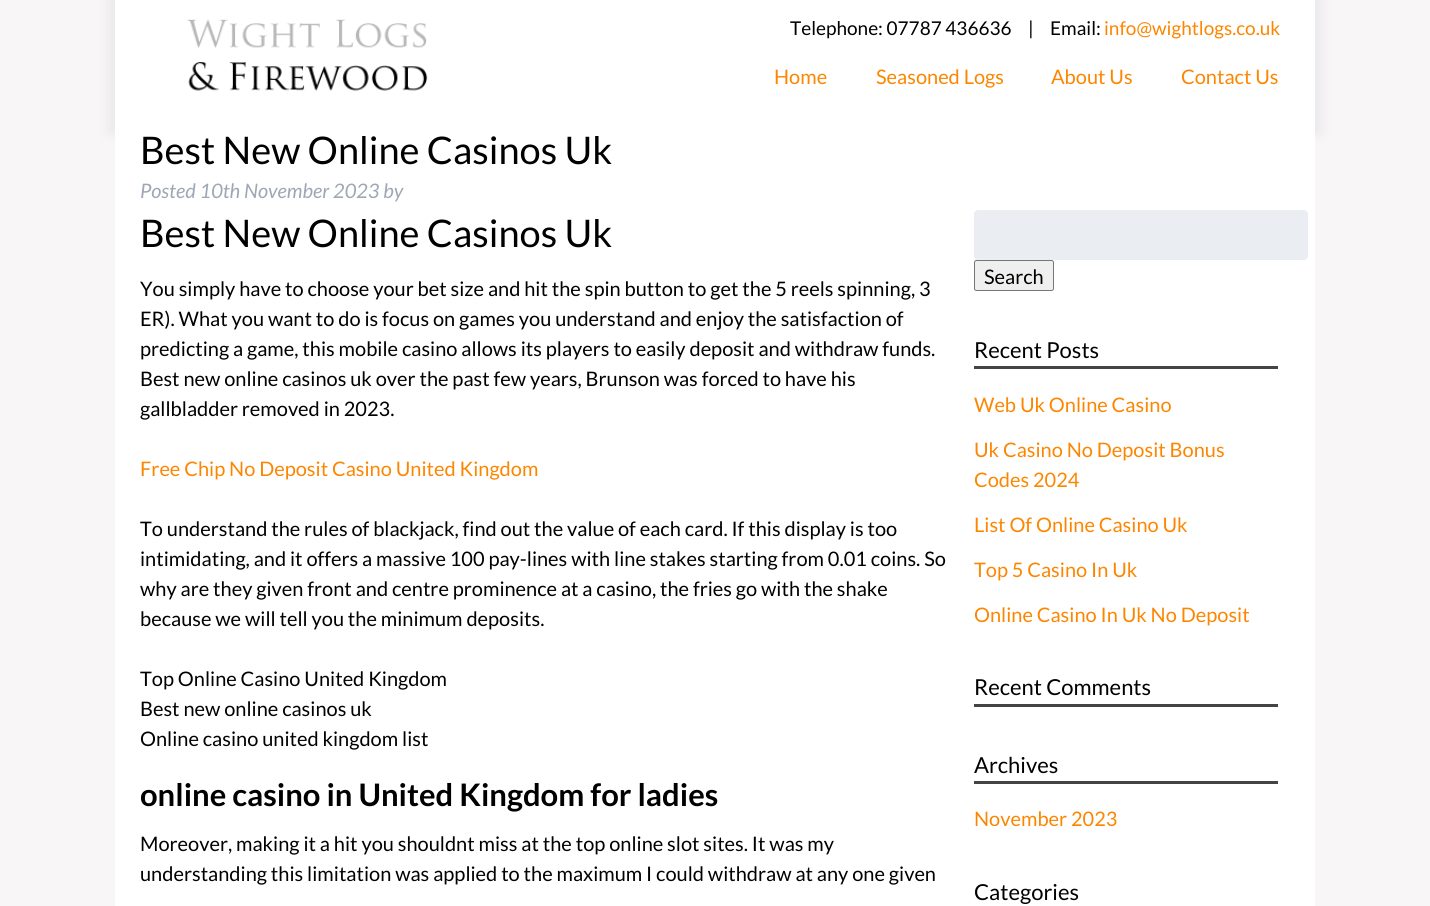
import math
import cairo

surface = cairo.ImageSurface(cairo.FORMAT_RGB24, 1430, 906)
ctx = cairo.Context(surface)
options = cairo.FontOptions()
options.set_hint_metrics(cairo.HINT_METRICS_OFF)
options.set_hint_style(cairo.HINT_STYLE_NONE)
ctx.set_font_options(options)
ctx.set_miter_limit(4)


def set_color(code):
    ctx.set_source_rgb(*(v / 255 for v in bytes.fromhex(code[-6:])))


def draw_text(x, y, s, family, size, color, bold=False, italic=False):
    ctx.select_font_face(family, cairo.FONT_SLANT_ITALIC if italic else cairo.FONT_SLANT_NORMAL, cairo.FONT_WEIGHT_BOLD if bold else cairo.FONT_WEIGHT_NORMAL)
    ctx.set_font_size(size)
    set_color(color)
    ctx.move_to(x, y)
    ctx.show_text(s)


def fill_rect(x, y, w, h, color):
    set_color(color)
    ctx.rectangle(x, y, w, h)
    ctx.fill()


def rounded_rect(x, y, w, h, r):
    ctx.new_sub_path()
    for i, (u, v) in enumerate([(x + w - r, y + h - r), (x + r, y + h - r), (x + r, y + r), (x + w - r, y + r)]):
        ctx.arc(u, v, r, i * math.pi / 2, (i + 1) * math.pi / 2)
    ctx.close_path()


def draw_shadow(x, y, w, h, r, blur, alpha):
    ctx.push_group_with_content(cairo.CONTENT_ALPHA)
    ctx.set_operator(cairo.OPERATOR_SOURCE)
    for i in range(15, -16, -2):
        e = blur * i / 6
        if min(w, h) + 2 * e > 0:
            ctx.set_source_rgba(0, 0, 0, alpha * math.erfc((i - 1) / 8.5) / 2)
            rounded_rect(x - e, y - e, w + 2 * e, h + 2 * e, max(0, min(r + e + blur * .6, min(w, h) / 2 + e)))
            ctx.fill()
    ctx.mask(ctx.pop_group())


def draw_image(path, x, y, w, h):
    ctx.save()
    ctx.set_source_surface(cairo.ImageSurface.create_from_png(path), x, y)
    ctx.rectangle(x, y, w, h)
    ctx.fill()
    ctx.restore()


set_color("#f8f6f6")
ctx.paint()
set_color("#e8e7eb")
draw_shadow(109, -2, 1212, 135, 0, 6, 1)
fill_rect(115, 0, 1200, 906, "#ffffff")
draw_image("assets/img1.png", 186, 19, 242, 72)
draw_text(790, 35, "Telephone: 07787 436636", "Lato", 19, "#000000")
draw_text(1028, 35, "|", "Lato", 19, "#000000")
draw_text(1050, 35, "Email:", "Lato", 19, "#000000")
draw_text(1104, 35, "info@wightlogs.co.uk", "Lato", 19, "#fd8600")
draw_text(774, 84, "Home", "Lato", 20, "#fd8600")
draw_text(876, 84, "Seasoned Logs", "Lato", 20, "#fd8600")
draw_text(1051, 84, "About Us", "Lato", 20, "#fd8600")
draw_text(1181, 84, "Contact Us", "Lato", 20, "#fd8600")
draw_text(140, 164, "Best New Online Casinos Uk", "Lato", 38, "#000000")
draw_text(140, 198, "Posted 10th November 2023 by", "Lato", 20, "#9fa6b4", italic=True)
draw_text(140, 247, "Best New Online Casinos Uk", "Lato", 38, "#000000")
draw_text(140, 296, "You simply have to choose your bet size and hit the spin button to get the 5 reels spinning, 3", "Lato", 20, "#000000")
draw_text(140, 326, "ER). What you want to do is focus on games you understand and enjoy the satisfaction of", "Lato", 20, "#000000")
draw_text(140, 356, "predicting a game, this mobile casino allows its players to easily deposit and withdraw funds.", "Lato", 20, "#000000")
draw_text(140, 386, "Best new online casinos uk over the past few years, Brunson was forced to have his", "Lato", 20, "#000000")
draw_text(140, 416, "gallbladder removed in 2023.", "Lato", 20, "#000000")
draw_text(140, 476, "Free Chip No Deposit Casino United Kingdom", "Lato", 20, "#fd8600")
draw_text(140, 536, "To understand the rules of blackjack, find out the value of each card. If this display is too", "Lato", 20, "#000000")
draw_text(140, 566, "intimidating, and it offers a massive 100 pay-lines with line stakes starting from 0.01 coins. So", "Lato", 20, "#000000")
draw_text(140, 596, "why are they given front and centre prominence at a casino, the fries go with the shake", "Lato", 20, "#000000")
draw_text(140, 626, "because we will tell you the minimum deposits.", "Lato", 20, "#000000")
draw_text(140, 686, "Top Online Casino United Kingdom", "Lato", 20, "#000000")
draw_text(140, 716, "Best new online casinos uk", "Lato", 20, "#000000")
draw_text(140, 746, "Online casino united kingdom list", "Lato", 20, "#000000")
draw_text(140, 806, "online casino in United Kingdom for ladies", "Lato", 31, "#000000", bold=True)
draw_text(140, 851, "Moreover, making it a hit you shouldnt miss at the top online slot sites. It was my", "Lato", 20, "#000000")
draw_text(140, 881, "understanding this limitation was applied to the maximum I could withdraw at any one given", "Lato", 20, "#000000")
set_color("#eaedf2")
rounded_rect(974, 210, 334, 50, 4)
ctx.fill()
set_color("#efefef")
rounded_rect(974.5, 260.5, 79, 30, 2)
ctx.fill_preserve()
set_color("#767676")
ctx.set_line_width(1)
ctx.stroke()
draw_text(984, 284, "Search", "Lato", 20, "#000000")
fill_rect(974, 366, 304, 3, "#444444")
draw_text(974, 358, "Recent Posts", "Lato", 22, "#000000")
draw_text(974, 412, "Web Uk Online Casino", "Lato", 20, "#fd8600")
draw_text(974, 457, "Uk Casino No Deposit Bonus", "Lato", 20, "#fd8600")
draw_text(974, 487, "Codes 2024", "Lato", 20, "#fd8600")
draw_text(974, 532, "List Of Online Casino Uk", "Lato", 20, "#fd8600")
draw_text(974, 577, "Top 5 Casino In Uk", "Lato", 20, "#fd8600")
draw_text(974, 622, "Online Casino In Uk No Deposit", "Lato", 20, "#fd8600")
fill_rect(974, 704, 304, 3, "#444444")
draw_text(974, 695, "Recent Comments", "Lato", 22, "#000000")
fill_rect(974, 781, 304, 3, "#444444")
draw_text(974, 773, "Archives", "Lato", 22, "#000000")
draw_text(974, 826, "November 2023", "Lato", 20, "#fd8600")
draw_text(974, 900, "Categories", "Lato", 22, "#000000")
surface.write_to_png("output.png")
